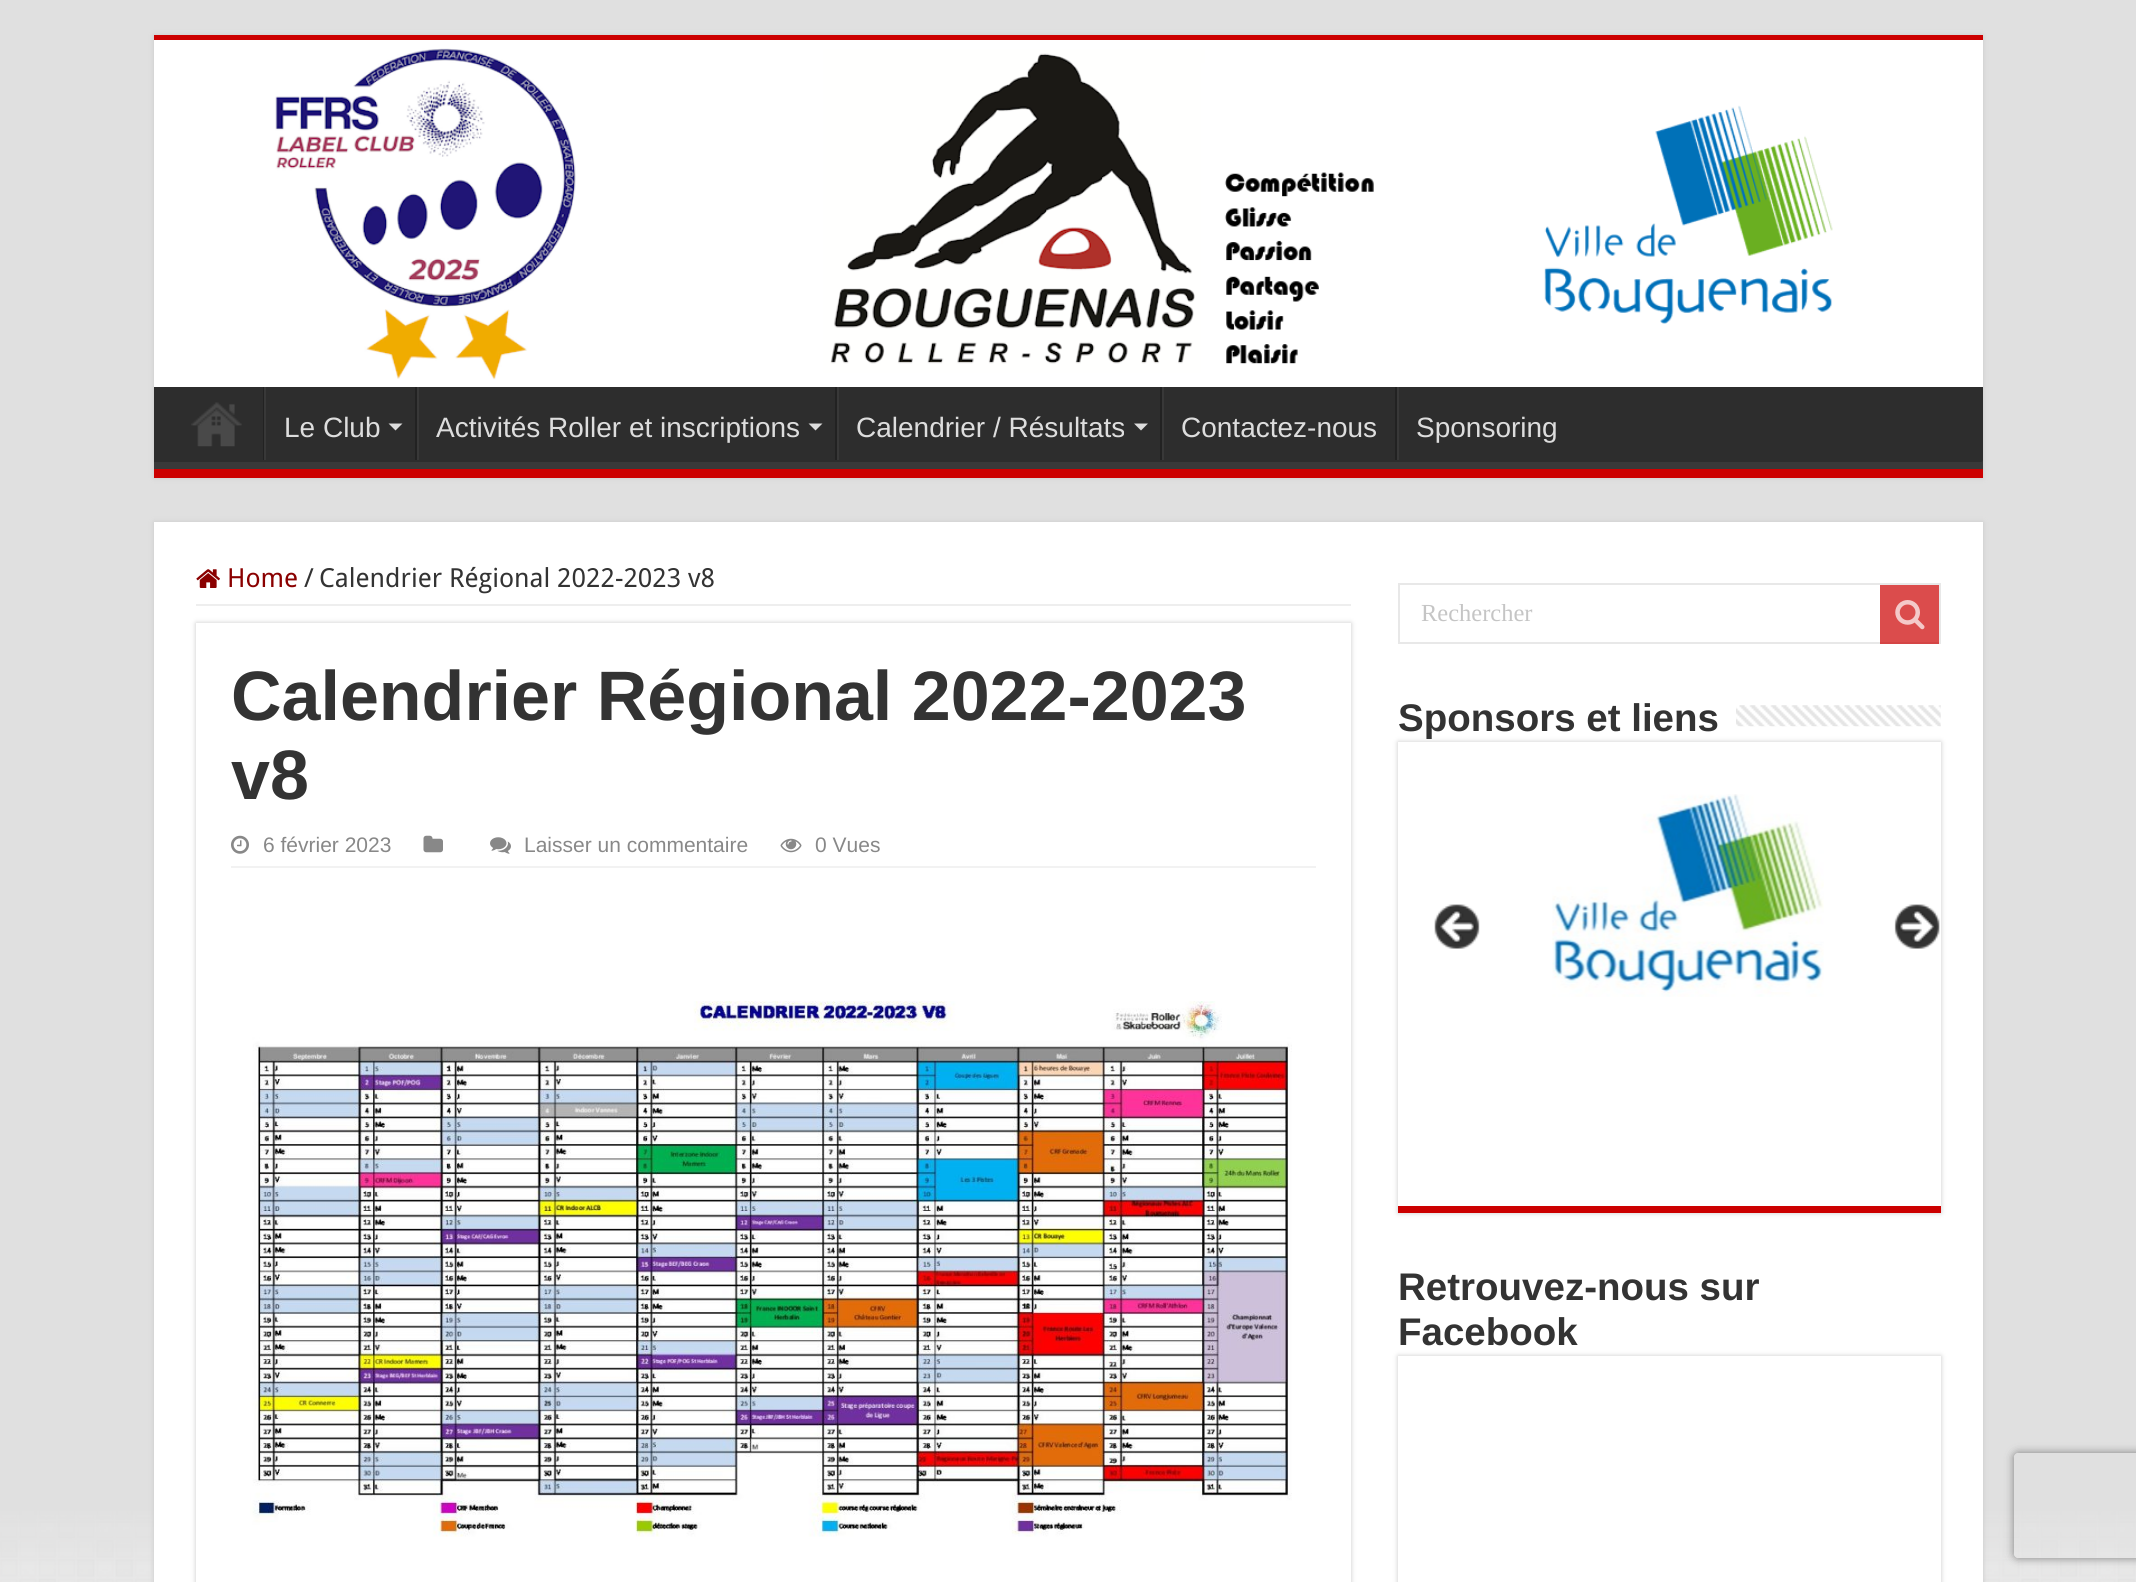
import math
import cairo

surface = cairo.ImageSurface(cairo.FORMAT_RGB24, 2136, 1582)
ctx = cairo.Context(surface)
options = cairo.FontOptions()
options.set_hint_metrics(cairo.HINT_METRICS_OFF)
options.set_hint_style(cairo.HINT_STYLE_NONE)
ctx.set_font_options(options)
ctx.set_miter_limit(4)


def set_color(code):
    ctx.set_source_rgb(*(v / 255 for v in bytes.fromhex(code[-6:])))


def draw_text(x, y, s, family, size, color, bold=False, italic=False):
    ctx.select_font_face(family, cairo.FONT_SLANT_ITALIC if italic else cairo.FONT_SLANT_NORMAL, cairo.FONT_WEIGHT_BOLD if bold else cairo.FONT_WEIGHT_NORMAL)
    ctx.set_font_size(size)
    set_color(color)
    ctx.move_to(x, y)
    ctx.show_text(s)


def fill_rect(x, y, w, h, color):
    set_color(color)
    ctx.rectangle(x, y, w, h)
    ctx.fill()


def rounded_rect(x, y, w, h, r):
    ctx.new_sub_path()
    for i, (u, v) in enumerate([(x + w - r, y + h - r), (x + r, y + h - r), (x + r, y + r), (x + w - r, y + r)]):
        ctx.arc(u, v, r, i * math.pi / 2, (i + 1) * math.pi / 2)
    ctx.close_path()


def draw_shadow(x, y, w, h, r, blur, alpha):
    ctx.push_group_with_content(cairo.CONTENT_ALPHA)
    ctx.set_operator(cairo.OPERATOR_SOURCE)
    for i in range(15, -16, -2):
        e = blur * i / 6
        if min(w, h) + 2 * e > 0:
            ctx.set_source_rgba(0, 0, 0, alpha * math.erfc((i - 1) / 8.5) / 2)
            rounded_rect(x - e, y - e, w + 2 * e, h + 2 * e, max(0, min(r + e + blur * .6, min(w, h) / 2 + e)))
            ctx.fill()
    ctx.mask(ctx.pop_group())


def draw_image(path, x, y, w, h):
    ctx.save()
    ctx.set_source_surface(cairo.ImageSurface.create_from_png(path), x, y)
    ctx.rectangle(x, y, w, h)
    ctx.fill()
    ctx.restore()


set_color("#ffffff")
ctx.paint()
draw_image("assets/img1.png", 0, 1507, 2136, 75)
draw_image("assets/img2.png", 0, 0, 2136, 1582)
set_color("#cacaca")
draw_shadow(154, 35, 1829, 443, 0, 2.5, 1)
fill_rect(154, 40, 1829, 347, "#ffffff")
fill_rect(154, 35, 1829, 5, "#cc0000")
draw_image("assets/img3.png", 275, 48, 1558, 332)
fill_rect(154, 387, 1829, 75, "#2d2d2d")
ctx.save()
ctx.rectangle(154, 387, 1829, 82)
ctx.clip()
set_color("#393939")
ctx.set_fill_rule(cairo.FILL_RULE_EVEN_ODD)
ctx.new_path()
ctx.move_to(-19, 214)
ctx.line_to(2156, 214)
ctx.line_to(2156, 642)
ctx.line_to(-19, 642)
ctx.close_path()
ctx.move_to(152, 376)
ctx.line_to(1981, 376)
ctx.curve_to(1982, 376, 1983, 377, 1983, 378)
ctx.line_to(1983, 460)
ctx.curve_to(1983, 461, 1982, 462, 1981, 462)
ctx.line_to(152, 462)
ctx.curve_to(151, 462, 150, 461, 150, 460)
ctx.line_to(150, 378)
ctx.curve_to(150, 377, 151, 376, 152, 376)
ctx.close_path()
ctx.fill()
ctx.restore()
fill_rect(154, 469, 1829, 9, "#cc0000")
draw_image("assets/img4.png", 191, 402, 51, 45)
fill_rect(263, 387, 1, 73, "#222222")
fill_rect(264, 387, 2, 73, "#383838")
draw_text(284, 437, "Le Club", "Liberation Sans", 28, "#dddddd")
ctx.new_path()
ctx.move_to(388.5, 423.5)
ctx.line_to(402.5, 423.5)
ctx.line_to(395.5, 430.5)
ctx.close_path()
ctx.fill()
fill_rect(415, 387, 2, 73, "#222222")
fill_rect(417, 387, 2, 73, "#383838")
draw_text(436, 437, "Activités Roller et inscriptions", "Liberation Sans", 28, "#dddddd")
ctx.new_path()
ctx.move_to(808.5, 423.5)
ctx.line_to(822.5, 423.5)
ctx.line_to(815.5, 430.5)
ctx.close_path()
ctx.fill()
fill_rect(835, 387, 2, 73, "#222222")
fill_rect(837, 387, 2, 73, "#383838")
draw_text(856, 437, "Calendrier / Résultats", "Liberation Sans", 28, "#dddddd")
ctx.new_path()
ctx.move_to(1134, 423.5)
ctx.line_to(1148, 423.5)
ctx.line_to(1141, 430.5)
ctx.close_path()
ctx.fill()
fill_rect(1160, 387, 2, 73, "#222222")
fill_rect(1162, 387, 2, 73, "#383838")
draw_text(1181, 437, "Contactez-nous", "Liberation Sans", 28, "#dddddd")
fill_rect(1395, 387, 2, 73, "#222222")
fill_rect(1397, 387, 2, 73, "#383838")
draw_text(1416, 437, "Sponsoring", "Liberation Sans", 28, "#dddddd")
set_color("#cacaca")
draw_shadow(154, 522, 1829, 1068, 0, 2.5, 1)
fill_rect(154, 522, 1829, 1060, "#ffffff")
fill_rect(196, 604, 1155, 2, "#eeeeee")
draw_image("assets/img5.png", 196, 569, 24, 19)
draw_text(227, 587, "Home", "Droid Sans", 26.25, "#8a0000")
draw_text(304, 587, "/", "Droid Sans", 26.25, "#333333")
draw_text(319, 587, "Calendrier Régional 2022-2023 v8", "Droid Sans", 26.25, "#333333")
ctx.save()
ctx.set_fill_rule(cairo.FILL_RULE_EVEN_ODD)
ctx.new_path()
ctx.move_to(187, 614)
ctx.line_to(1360, 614)
ctx.line_to(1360, 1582)
ctx.line_to(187, 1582)
ctx.close_path()
ctx.move_to(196, 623)
ctx.line_to(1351, 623)
ctx.line_to(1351, 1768)
ctx.line_to(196, 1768)
ctx.close_path()
ctx.clip()
set_color("#cacaca")
draw_shadow(196, 623, 1155, 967, 0, 2.5, 1)
ctx.restore()
draw_text(231, 720, "Calendrier Régional 2022-2023", "Liberation Sans", 70, "#333333", bold=True)
draw_text(231, 799, "v8", "Liberation Sans", 70, "#333333", bold=True)
fill_rect(231, 866, 1085, 2, "#f2f2f2")
draw_image("assets/img6.png", 231, 835, 18, 19)
draw_text(263, 852, "6 février 2023", "Liberation Sans", 21, "#888888")
draw_image("assets/img7.png", 423, 835, 20, 18)
draw_image("assets/img8.png", 490, 837, 21, 17)
draw_text(524, 852, "Laisser un commentaire", "Liberation Sans", 21, "#888888")
draw_image("assets/img9.png", 780, 838, 22, 15)
draw_text(815, 852, "0 Vues", "Liberation Sans", 21, "#888888")
draw_image("assets/img10.png", 250, 1001, 1042, 536)
ctx.rectangle(1399, 584, 541, 59)
set_color("#e8e8e8")
ctx.stroke()
draw_text(1421, 621, "Rechercher", "Liberation Serif", 24.5, "#c5c5c5")
ctx.set_source_rgba(0.8, 0, 0, 0.7)
ctx.rectangle(1880, 585, 59, 59)
ctx.fill()
draw_image("assets/img11.png", 1895, 600, 30, 30)
set_color("#cacaca")
draw_shadow(1398, 742, 543, 471, 0, 2.5, 1)
draw_text(1398, 731, "Sponsors et liens", "Liberation Sans", 38.5, "#333333", bold=True)
draw_image("assets/img12.png", 1736, 705, 205, 22)
fill_rect(1398, 742, 543, 464, "#ffffff")
fill_rect(1398, 1206, 543, 7, "#cc0000")
draw_image("assets/img13.png", 1552, 794, 272, 203)
draw_image("assets/img14.png", 1434, 904, 46, 45)
draw_image("assets/img15.png", 1894, 904, 46, 45)
draw_text(1398, 1300, "Retrouvez-nous sur", "Liberation Sans", 38.5, "#333333", bold=True)
draw_text(1398, 1345, "Facebook", "Liberation Sans", 38.5, "#333333", bold=True)
set_color("#cacaca")
draw_shadow(1398, 1356, 543, 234, 0, 2.5, 1)
fill_rect(1398, 1356, 543, 226, "#ffffff")
ctx.save()
ctx.set_fill_rule(cairo.FILL_RULE_EVEN_ODD)
ctx.new_path()
ctx.move_to(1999, 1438)
ctx.line_to(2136, 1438)
ctx.line_to(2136, 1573)
ctx.line_to(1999, 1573)
ctx.close_path()
ctx.move_to(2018, 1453)
ctx.line_to(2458, 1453)
ctx.curve_to(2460, 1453, 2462, 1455, 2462, 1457)
ctx.line_to(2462, 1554)
ctx.curve_to(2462, 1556, 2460, 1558, 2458, 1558)
ctx.line_to(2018, 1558)
ctx.curve_to(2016, 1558, 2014, 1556, 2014, 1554)
ctx.line_to(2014, 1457)
ctx.curve_to(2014, 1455, 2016, 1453, 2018, 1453)
ctx.close_path()
ctx.clip()
set_color("#808080")
draw_shadow(2014, 1453, 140, 105, 4, 4.5, 1)
ctx.restore()
surface.write_to_png("output.png")
